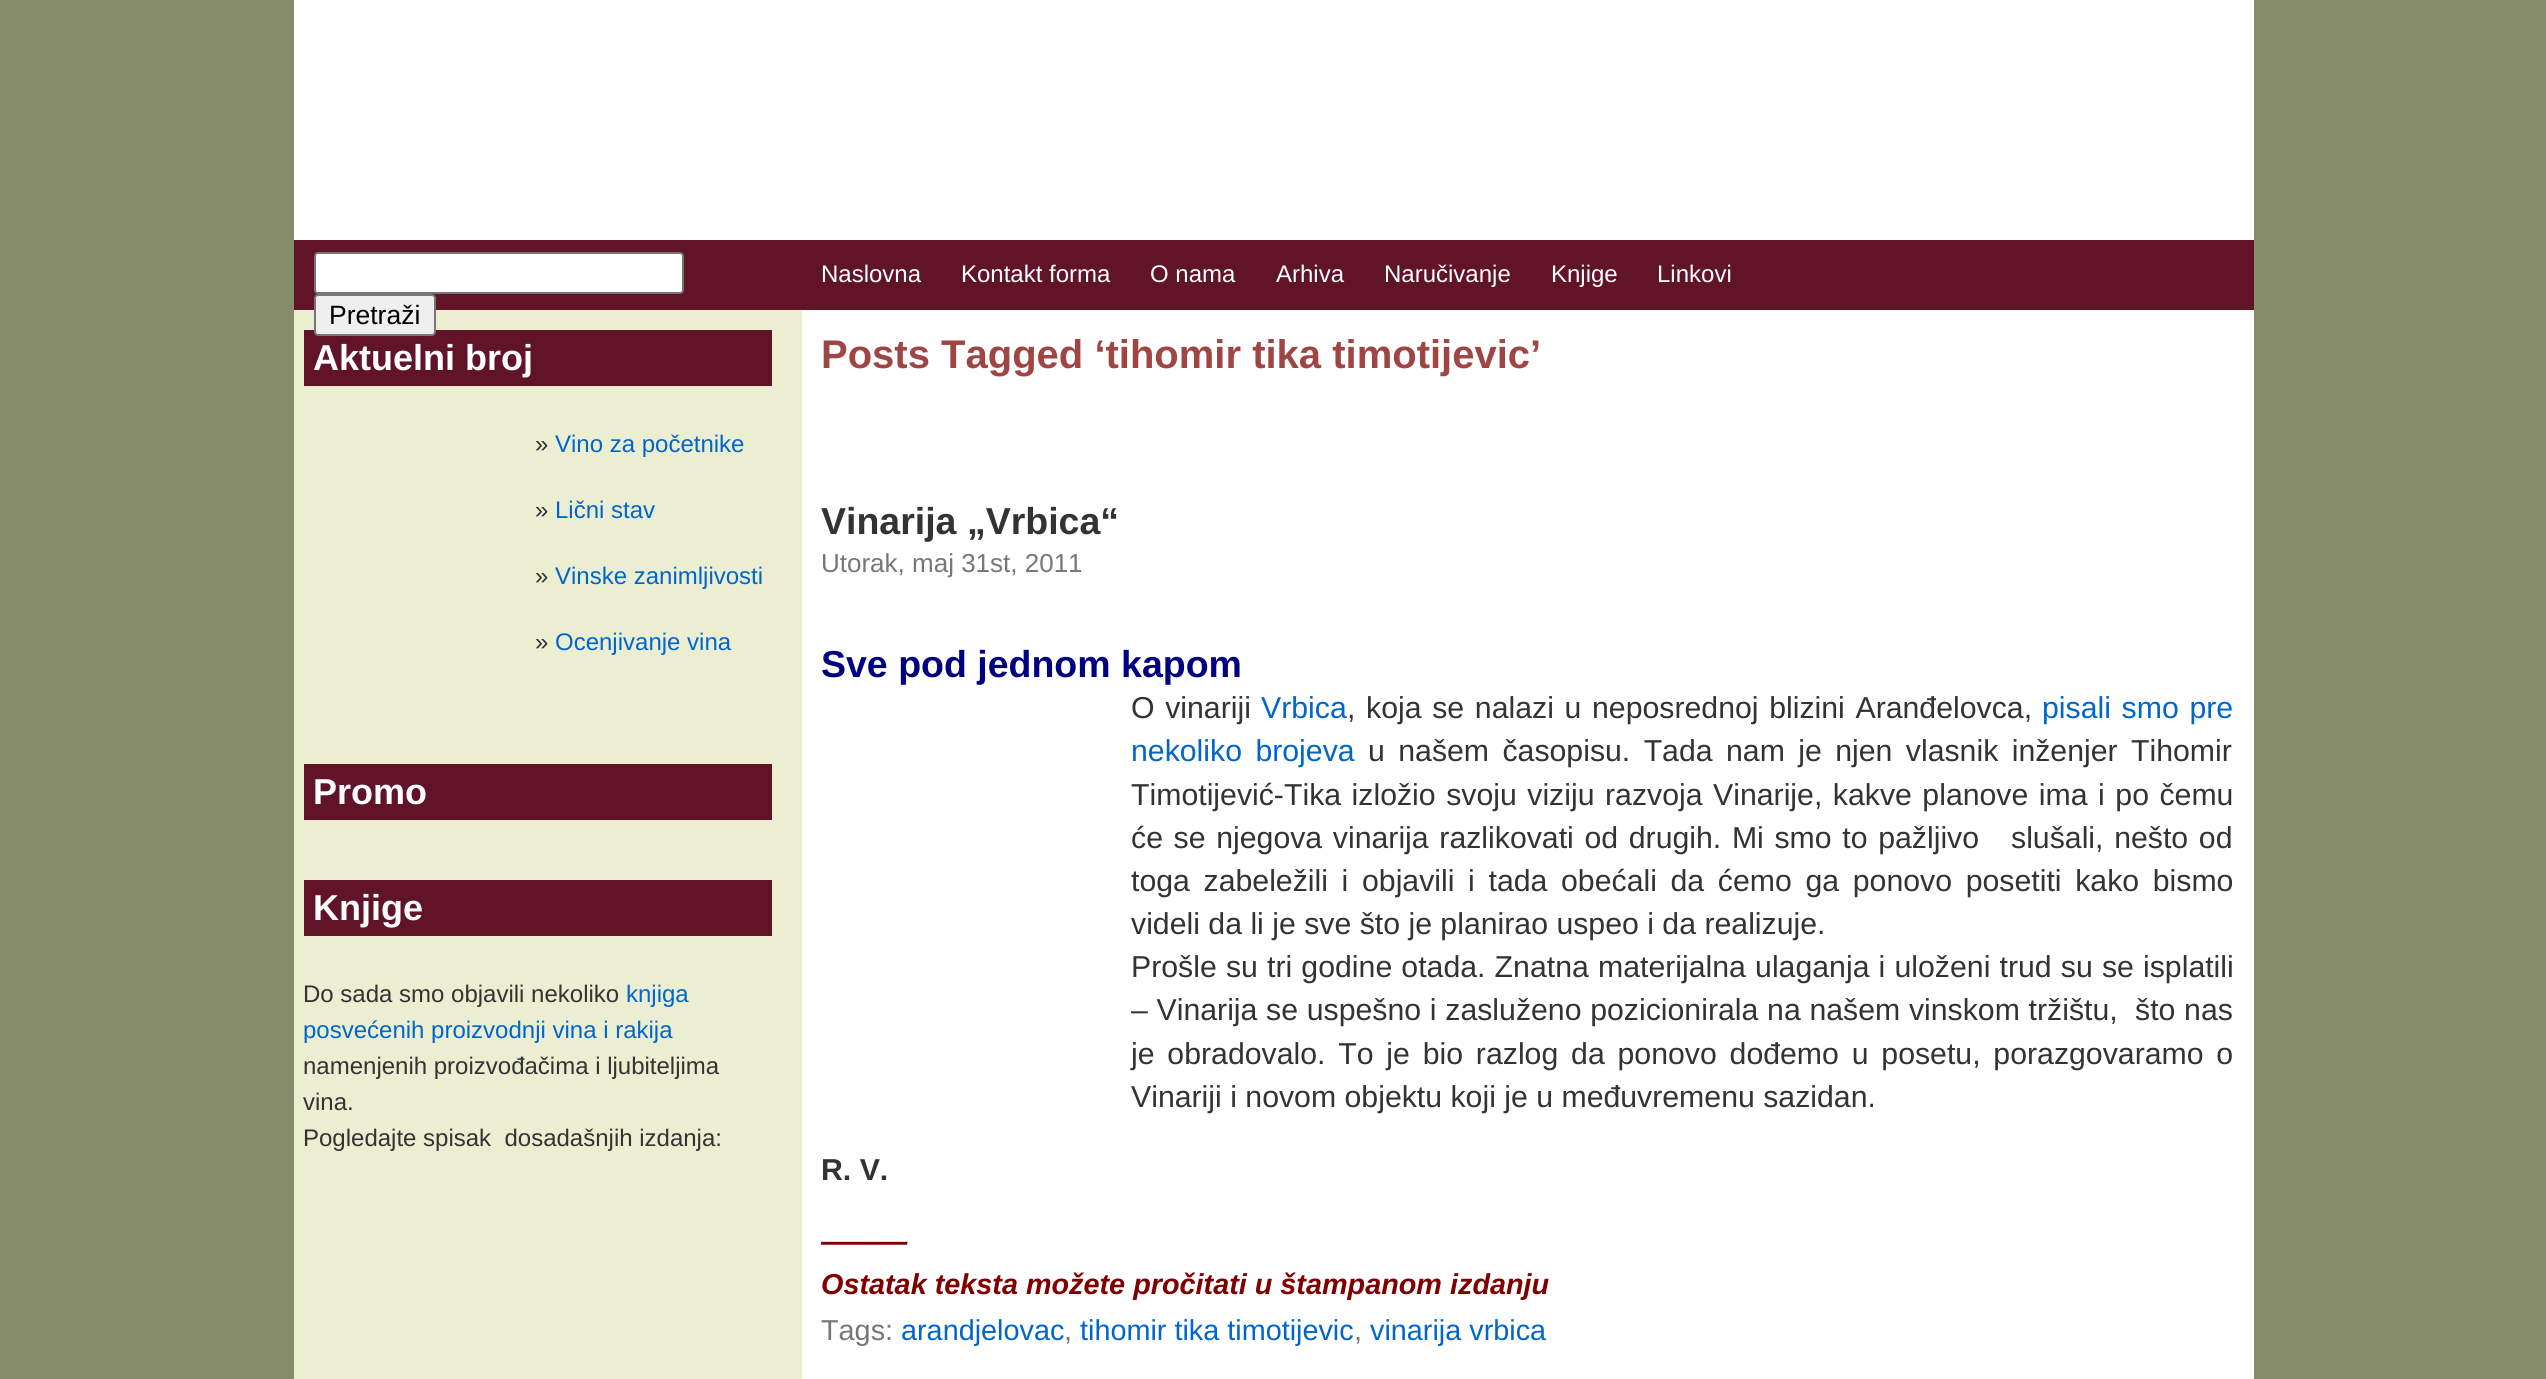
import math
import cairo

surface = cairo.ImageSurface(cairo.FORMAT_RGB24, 2546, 1379)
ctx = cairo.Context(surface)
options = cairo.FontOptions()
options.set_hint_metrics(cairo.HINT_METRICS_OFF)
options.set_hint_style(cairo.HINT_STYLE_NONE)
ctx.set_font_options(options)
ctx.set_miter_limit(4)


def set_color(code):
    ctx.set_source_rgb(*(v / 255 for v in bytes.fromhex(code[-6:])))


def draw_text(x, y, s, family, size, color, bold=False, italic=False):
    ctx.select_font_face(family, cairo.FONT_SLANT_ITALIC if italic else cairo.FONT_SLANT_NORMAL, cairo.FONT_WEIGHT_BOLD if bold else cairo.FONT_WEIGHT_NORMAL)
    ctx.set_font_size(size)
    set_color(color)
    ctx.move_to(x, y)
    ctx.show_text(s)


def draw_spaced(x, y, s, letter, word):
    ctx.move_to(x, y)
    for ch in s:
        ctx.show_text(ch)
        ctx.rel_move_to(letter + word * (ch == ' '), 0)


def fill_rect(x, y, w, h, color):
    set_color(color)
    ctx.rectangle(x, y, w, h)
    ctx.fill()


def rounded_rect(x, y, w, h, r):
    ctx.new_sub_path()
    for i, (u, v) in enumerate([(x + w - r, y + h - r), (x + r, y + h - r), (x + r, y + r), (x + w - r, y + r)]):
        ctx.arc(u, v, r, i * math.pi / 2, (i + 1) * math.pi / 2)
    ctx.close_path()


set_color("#868b6b")
ctx.paint()
fill_rect(294, 0, 1960, 1379, "#ffffff")
fill_rect(294, 240, 1960, 70, "#611427")
draw_text(821, 282, "Naslovna", "Liberation Sans", 24, "#ffffff")
draw_text(961, 282, "Kontakt forma", "Liberation Sans", 24, "#ffffff")
draw_text(1150, 282, "O nama", "Liberation Sans", 24, "#ffffff")
draw_text(1276, 282, "Arhiva", "Liberation Sans", 24, "#ffffff")
draw_text(1384, 282, "Naručivanje", "Liberation Sans", 24, "#ffffff")
draw_text(1551, 282, "Knjige", "Liberation Sans", 24, "#ffffff")
draw_text(1657, 282, "Linkovi", "Liberation Sans", 24, "#ffffff")
rounded_rect(315, 253, 368, 40, 3)
ctx.fill_preserve()
set_color("#767676")
ctx.stroke()
fill_rect(294, 310, 508, 1069, "#eceed2")
fill_rect(304, 330, 468, 56, "#611427")
set_color("#efefef")
rounded_rect(315, 295, 120, 40, 3)
ctx.fill_preserve()
set_color("#767676")
ctx.stroke()
draw_text(329, 324, "Pretraži", "Liberation Sans", 26.5, "#000000")
draw_text(313, 370, "Aktuelni broj", "Liberation Sans", 36, "#ffffff", bold=True)
draw_text(535, 452, "»", "Liberation Sans", 24, "#333333")
draw_text(555, 452, "Vino za početnike", "Liberation Sans", 24, "#0066cc")
draw_text(535, 518, "»", "Liberation Sans", 24, "#333333")
draw_text(555, 518, "Lični stav", "Liberation Sans", 24, "#0066cc")
draw_text(535, 584, "»", "Liberation Sans", 24, "#333333")
draw_text(555, 584, "Vinske zanimljivosti", "Liberation Sans", 24, "#0066cc")
draw_text(535, 650, "»", "Liberation Sans", 24, "#333333")
draw_text(555, 650, "Ocenjivanje vina", "Liberation Sans", 24, "#0066cc")
fill_rect(304, 764, 468, 56, "#611427")
draw_text(313, 804, "Promo", "Liberation Sans", 36, "#ffffff", bold=True)
fill_rect(304, 880, 468, 56, "#611427")
draw_text(313, 920, "Knjige", "Liberation Sans", 36, "#ffffff", bold=True)
draw_text(303, 1002, "Do sada smo objavili nekoliko", "Liberation Sans", 24, "#333333")
draw_text(626, 1002, "knjiga", "Liberation Sans", 24, "#0066cc")
draw_text(303, 1038, "posvećenih proizvodnji vina i rakija", "Liberation Sans", 24, "#0066cc")
draw_text(303, 1074, "namenjenih proizvođačima i ljubiteljima", "Liberation Sans", 24, "#333333")
draw_text(303, 1110, "vina.", "Liberation Sans", 24, "#333333")
draw_text(303, 1146, "Pogledajte spisak  dosadašnjih izdanja:", "Liberation Sans", 24, "#333333")
draw_text(821, 368, "Posts Tagged ‘tihomir tika timotijevic’", "Liberation Sans", 40, "#9f4645", bold=True)
draw_text(821, 534, "Vinarija „Vrbica“", "Liberation Sans", 37.5, "#333333", bold=True)
draw_text(821, 572, "Utorak, maj 31st, 2011", "Liberation Sans", 26, "#777777")
draw_text(821, 677, "Sve pod jednom kapom", "Liberation Sans", 37.5, "#000080", bold=True)
ctx.select_font_face("Liberation Sans")
ctx.set_font_size(30.25)
set_color("#333333")
draw_spaced(1131, 718, "O vinariji", 0, 2.25)
draw_text(1261, 718, "Vrbica", "Liberation Sans", 30.25, "#0066cc")
set_color("#333333")
draw_spaced(1347, 718, ", koja se nalazi u neposrednoj blizini Aranđelovca,", 0, 2.25)
set_color("#0066cc")
draw_spaced(2042, 718, "pisali smo pre", 0, 2.25)
draw_spaced(1131, 761, "nekoliko brojeva", 0, 5)
set_color("#333333")
draw_spaced(1368, 761, "u našem časopisu. Tada nam je njen vlasnik inženjer Tihomir", 0, 5)
draw_spaced(1131, 805, "Timotijević-Tika izložio svoju viziju razvoja Vinarije, kakve planove ima i po čemu", 0, 2.1)
draw_spaced(1131, 848, "će se njegova vinarija razlikovati od drugih. Mi smo to pažljivo   slušali, nešto od", 0, 2.25)
draw_spaced(1131, 891, "toga zabeležili i objavili i tada obećali da ćemo ga ponovo posetiti kako bismo", 0, 5.25)
draw_text(1131, 934, "videli da li je sve što je planirao uspeo i da realizuje.", "Liberation Sans", 30.25, "#333333")
draw_spaced(1131, 977, "Prošle su tri godine otada. Znatna materijalna ulaganja i uloženi trud su se isplatili", 0, 0.75)
draw_spaced(1131, 1020, "– Vinarija se uspešno i zasluženo pozicionirala na našem vinskom tržištu,  što nas", 0, 0.3)
draw_spaced(1131, 1064, "je obradovalo. To je bio razlog da ponovo dođemo u posetu, porazgovaramo o", 0, 4.4)
draw_text(1131, 1107, "Vinariji i novom objektu koji je u međuvremenu sazidan.", "Liberation Sans", 30.25, "#333333")
draw_text(821, 1180, "R. V.", "Liberation Sans", 30.25, "#333333", bold=True)
draw_text(821, 1251, "———", "Liberation Sans", 28.8, "#800000", bold=True, italic=True)
draw_text(821, 1294, "Ostatak teksta možete pročitati u štampanom izdanju", "Liberation Sans", 28.8, "#800000", bold=True, italic=True)
draw_text(821, 1340, "Tags:", "Liberation Sans", 28.8, "#777777")
draw_text(901, 1340, "arandjelovac", "Liberation Sans", 28.8, "#0066cc")
draw_text(1064, 1340, ",", "Liberation Sans", 28.8, "#777777")
draw_text(1080, 1340, "tihomir tika timotijevic", "Liberation Sans", 28.8, "#0066cc")
draw_text(1354, 1340, ",", "Liberation Sans", 28.8, "#777777")
draw_text(1370, 1340, "vinarija vrbica", "Liberation Sans", 28.8, "#0066cc")
surface.write_to_png("output.png")
